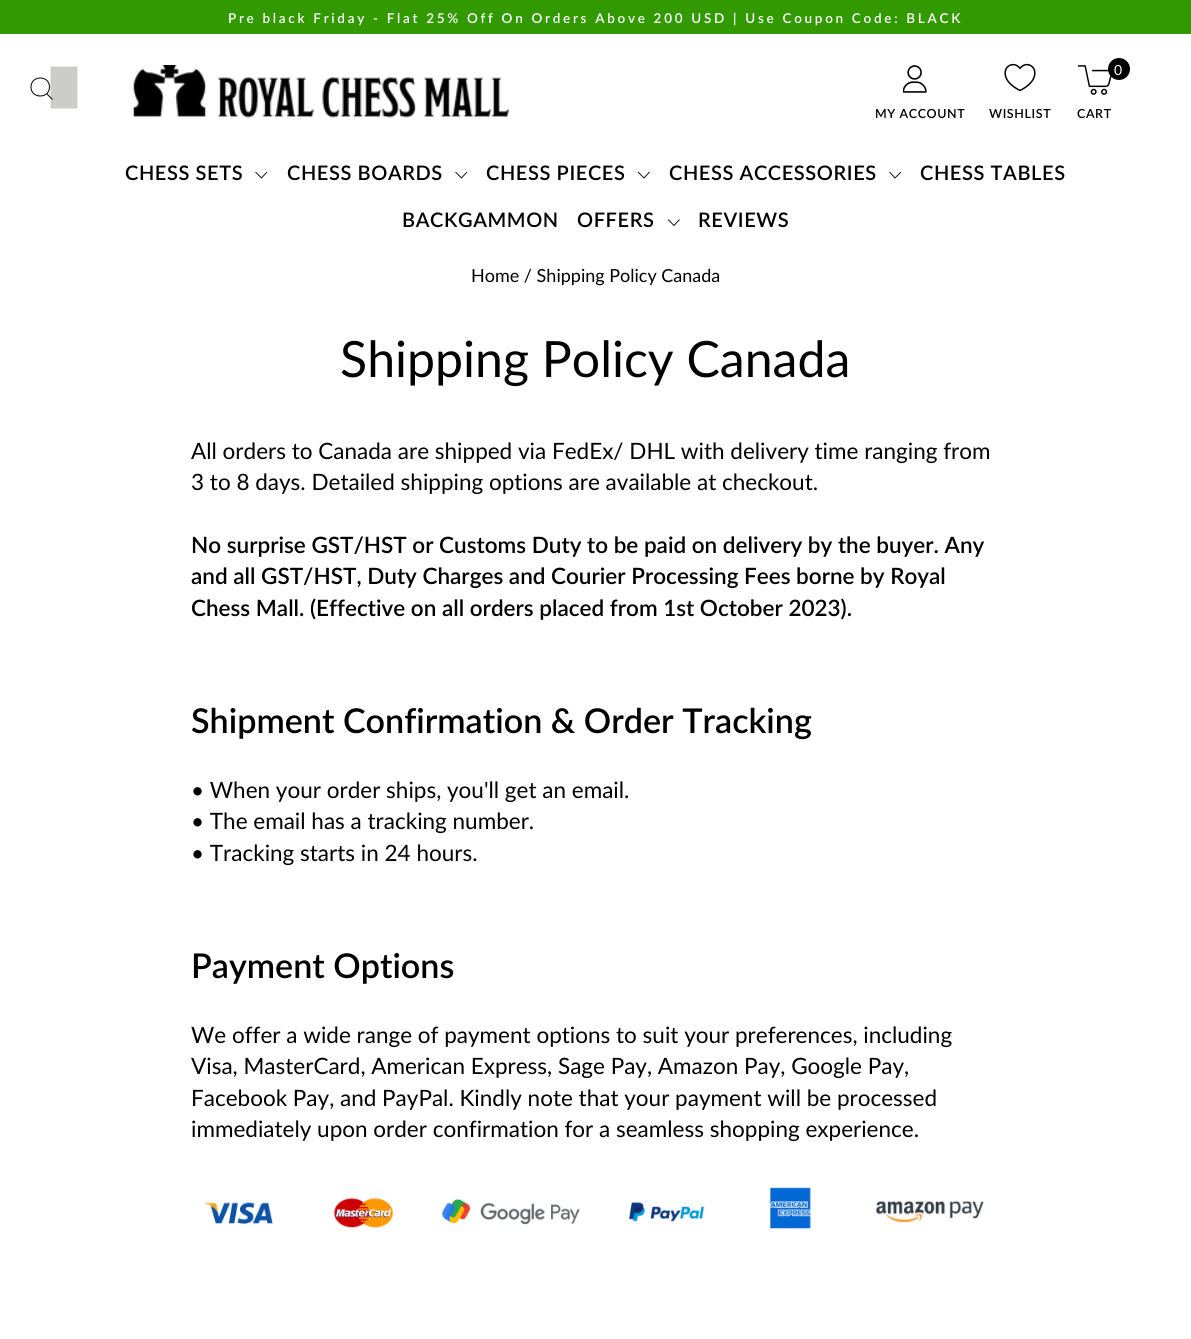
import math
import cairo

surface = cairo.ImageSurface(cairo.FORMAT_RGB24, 1191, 1339)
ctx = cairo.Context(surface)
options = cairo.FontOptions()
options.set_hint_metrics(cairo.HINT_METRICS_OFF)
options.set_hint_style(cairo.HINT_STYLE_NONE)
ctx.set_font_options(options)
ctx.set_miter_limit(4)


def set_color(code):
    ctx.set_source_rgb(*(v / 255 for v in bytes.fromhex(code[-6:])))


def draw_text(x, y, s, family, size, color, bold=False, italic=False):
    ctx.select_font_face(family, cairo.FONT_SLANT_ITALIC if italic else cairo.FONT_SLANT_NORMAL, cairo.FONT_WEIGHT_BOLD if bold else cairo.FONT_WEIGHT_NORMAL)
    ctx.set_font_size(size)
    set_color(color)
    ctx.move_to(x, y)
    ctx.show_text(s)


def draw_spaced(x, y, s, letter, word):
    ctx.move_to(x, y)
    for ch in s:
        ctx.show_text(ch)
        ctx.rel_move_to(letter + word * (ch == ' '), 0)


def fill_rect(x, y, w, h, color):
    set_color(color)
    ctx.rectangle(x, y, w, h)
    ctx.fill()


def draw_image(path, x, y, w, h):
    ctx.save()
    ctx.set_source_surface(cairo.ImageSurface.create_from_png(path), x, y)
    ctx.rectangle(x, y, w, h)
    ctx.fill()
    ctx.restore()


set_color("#ffffff")
ctx.paint()
fill_rect(0, 0, 1191, 34, "#329901")
ctx.select_font_face("Lato SemiBold")
ctx.set_font_size(13.5)
set_color("#ffffff")
draw_spaced(228, 23, "Pre black Friday - Flat 25% Off On Orders Above 200 USD | Use Coupon Code: BLACK", 2.7, 0)
set_color("#cccccc")
ctx.rectangle(50.5, 66.5, 27, 42)
ctx.fill_preserve()
set_color("#e8e8e1")
ctx.set_line_width(1)
ctx.stroke()
ctx.new_path()
ctx.move_to(49.5, 87)
ctx.curve_to(49.5, 99, 31, 99, 31, 87)
ctx.curve_to(31, 75, 49.5, 75, 49.5, 87)
ctx.close_path()
ctx.move_to(52.5, 99.5)
ctx.line_to(46.5, 93.5)
set_color("#000000")
ctx.stroke()
draw_image("assets/img1.png", 133, 65, 376, 53)
draw_image("assets/img2.png", 903, 65, 24, 28)
ctx.set_font_size(12.5)
draw_spaced(875, 118, "MY ACCOUNT", 0.6, 0)
draw_image("assets/img3.png", 1004, 63, 32, 29)
draw_spaced(989, 118, "WISHLIST", 0.6, 0)
draw_image("assets/img4.png", 1078, 65, 34, 30)
ctx.arc(1119, 69, 11, 0, 2 * math.pi)
ctx.fill()
ctx.select_font_face("Lato")
ctx.set_font_size(14)
set_color("#ffffff")
draw_spaced(1114, 75, "0", 0.6, 0)
ctx.select_font_face("Lato SemiBold")
ctx.set_font_size(12.5)
set_color("#000000")
draw_spaced(1077, 118, "CART", 0.6, 0)
ctx.set_font_size(20)
draw_spaced(125, 180, "CHESS SETS", 0.6, 0)
ctx.new_path()
ctx.move_to(255.5, 172)
ctx.line_to(261.5, 178)
ctx.line_to(267, 172)
ctx.set_line_width(0.9)
ctx.stroke()
draw_spaced(287, 180, "CHESS BOARDS", 0.6, 0)
ctx.new_path()
ctx.move_to(455.5, 172)
ctx.line_to(461.5, 178)
ctx.line_to(467, 172)
ctx.stroke()
draw_spaced(486, 180, "CHESS PIECES", 0.6, 0)
ctx.new_path()
ctx.move_to(638, 172)
ctx.line_to(644, 178)
ctx.line_to(649.5, 172)
ctx.stroke()
draw_spaced(669, 180, "CHESS ACCESSORIES", 0.6, 0)
ctx.new_path()
ctx.move_to(889.5, 172)
ctx.line_to(895, 178)
ctx.line_to(901, 172)
ctx.stroke()
draw_spaced(920, 180, "CHESS TABLES", 0.6, 0)
draw_spaced(402, 227, "BACKGAMMON", 0.6, 0)
draw_spaced(577, 227, "OFFERS", 0.6, 0)
ctx.new_path()
ctx.move_to(668, 219.5)
ctx.line_to(674, 225.5)
ctx.line_to(679.5, 219.5)
ctx.stroke()
draw_spaced(698, 227, "REVIEWS", 0.6, 0)
draw_text(471, 282, "Home / Shipping Policy Canada", "Lato", 18, "#000000")
draw_text(340, 377, "Shipping Policy Canada", "Lato", 50, "#000000")
draw_text(191, 459, "All orders to Canada are shipped via FedEx/ DHL with delivery time ranging from", "Lato", 22.5, "#000000")
draw_text(191, 490, "3 to 8 days. Detailed shipping options are available at checkout.", "Lato", 22.5, "#000000")
draw_text(191, 553, "No surprise GST/HST or Customs Duty to be paid on delivery by the buyer. Any", "Lato SemiBold", 22.5, "#000000")
draw_text(191, 584, "and all GST/HST, Duty Charges and Courier Processing Fees borne by Royal", "Lato SemiBold", 22.5, "#000000")
draw_text(191, 616, "Chess Mall. (Effective on all orders placed from 1st October 2023).", "Lato SemiBold", 22.5, "#000000")
draw_text(191, 733, "Shipment Confirmation & Order Tracking", "Lato SemiBold", 34.1, "#000000")
draw_text(191, 798, "• When your order ships, you'll get an email.", "Lato", 22.5, "#000000")
draw_text(191, 829, "• The email has a tracking number.", "Lato", 22.5, "#000000")
draw_text(191, 861, "• Tracking starts in 24 hours.", "Lato", 22.5, "#000000")
draw_text(191, 978, "Payment Options", "Lato SemiBold", 34.1, "#000000")
draw_text(191, 1043, "We offer a wide range of payment options to suit your preferences, including", "Lato", 22.5, "#000000")
draw_text(191, 1074, "Visa, MasterCard, American Express, Sage Pay, Amazon Pay, Google Pay,", "Lato", 22.5, "#000000")
draw_text(191, 1106, "Facebook Pay, and PayPal. Kindly note that your payment will be processed", "Lato", 22.5, "#000000")
draw_text(191, 1137, "immediately upon order confirmation for a seamless shopping experience.", "Lato", 22.5, "#000000")
draw_image("assets/img5.png", 204, 1187, 780, 43)
surface.write_to_png("output.png")
